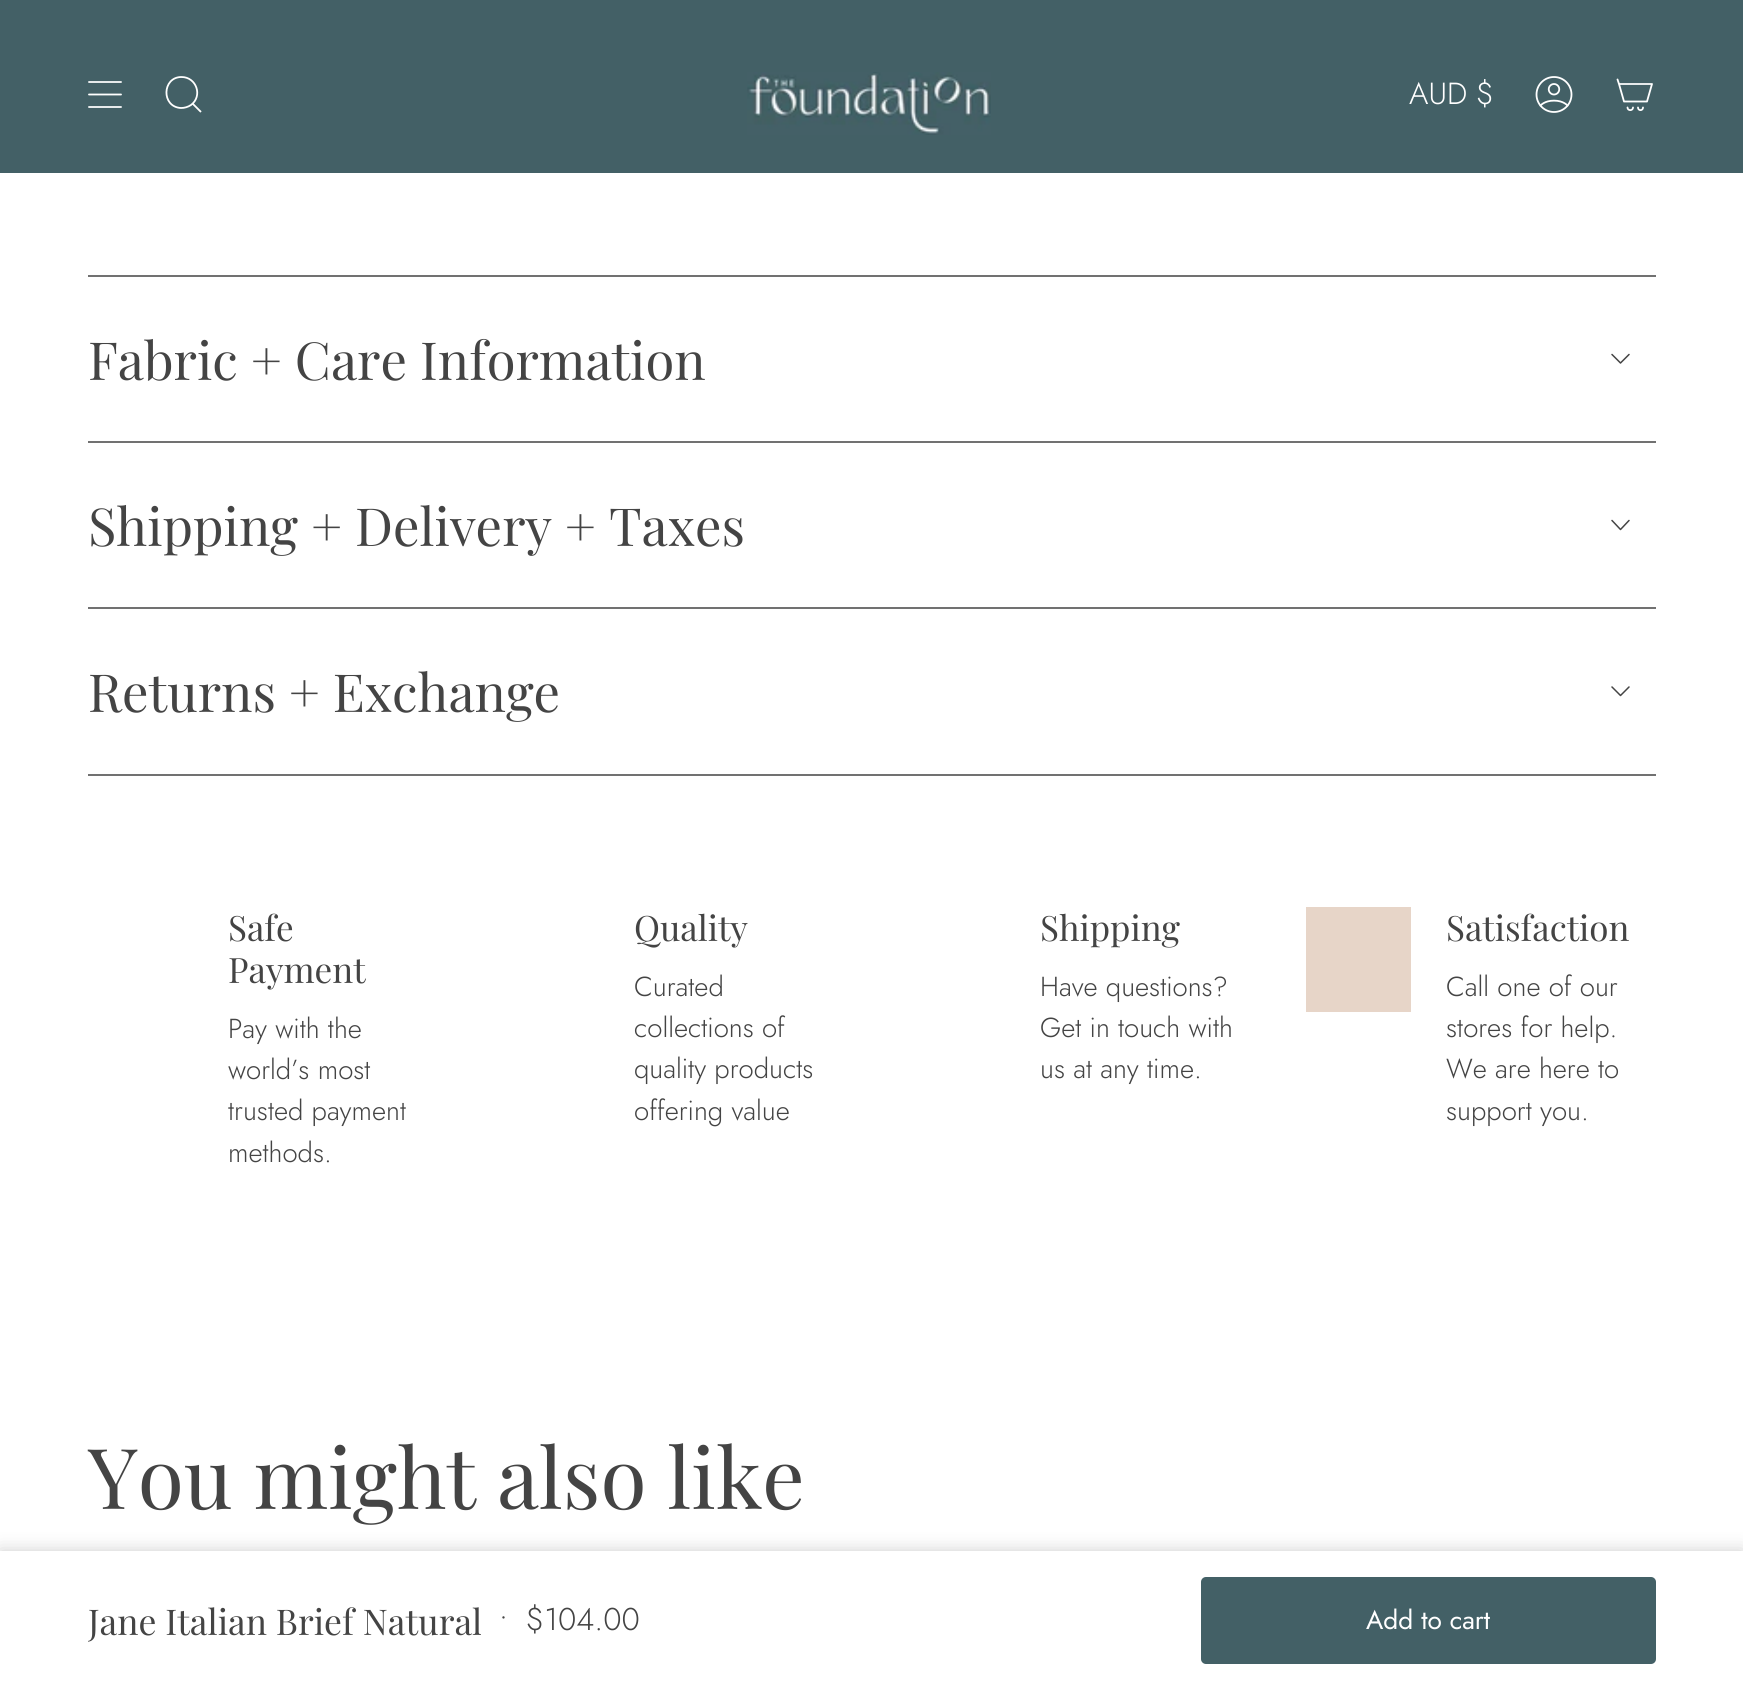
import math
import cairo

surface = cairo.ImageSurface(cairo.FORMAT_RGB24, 1743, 1690)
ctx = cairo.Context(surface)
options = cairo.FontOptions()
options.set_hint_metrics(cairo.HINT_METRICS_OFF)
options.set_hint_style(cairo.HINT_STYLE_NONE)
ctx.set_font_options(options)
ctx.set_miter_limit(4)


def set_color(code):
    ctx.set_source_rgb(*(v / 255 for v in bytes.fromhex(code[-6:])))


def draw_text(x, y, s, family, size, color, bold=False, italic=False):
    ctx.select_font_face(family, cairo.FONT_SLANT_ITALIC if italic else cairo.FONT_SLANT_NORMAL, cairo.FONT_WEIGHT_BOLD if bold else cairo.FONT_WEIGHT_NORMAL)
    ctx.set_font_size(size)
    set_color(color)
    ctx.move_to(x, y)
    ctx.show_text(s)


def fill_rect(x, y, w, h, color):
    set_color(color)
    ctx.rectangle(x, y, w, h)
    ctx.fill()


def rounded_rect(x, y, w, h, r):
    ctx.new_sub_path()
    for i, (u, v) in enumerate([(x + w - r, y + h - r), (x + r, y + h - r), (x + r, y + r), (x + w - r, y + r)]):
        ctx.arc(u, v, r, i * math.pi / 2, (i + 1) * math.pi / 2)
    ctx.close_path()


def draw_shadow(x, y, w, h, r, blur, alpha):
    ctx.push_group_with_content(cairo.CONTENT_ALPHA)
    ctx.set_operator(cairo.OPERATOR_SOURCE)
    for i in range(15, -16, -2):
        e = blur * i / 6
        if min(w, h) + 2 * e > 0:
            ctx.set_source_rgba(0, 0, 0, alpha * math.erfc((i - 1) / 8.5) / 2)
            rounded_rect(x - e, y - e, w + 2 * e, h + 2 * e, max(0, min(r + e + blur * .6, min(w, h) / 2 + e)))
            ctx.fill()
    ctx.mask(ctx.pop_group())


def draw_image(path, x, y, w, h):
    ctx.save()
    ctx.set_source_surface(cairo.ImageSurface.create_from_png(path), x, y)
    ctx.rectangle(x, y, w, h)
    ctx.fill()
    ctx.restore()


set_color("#ffffff")
ctx.paint()
fill_rect(0, 0, 1743, 173, "#436066")
ctx.new_path()
ctx.move_to(89, 82)
ctx.line_to(121, 82)
ctx.move_to(89, 94.5)
ctx.line_to(121, 94.5)
ctx.move_to(89, 107)
ctx.line_to(121, 107)
set_color("#ffffff")
ctx.set_line_width(1.8)
ctx.set_line_cap(cairo.LINE_CAP_ROUND)
ctx.set_line_join(cairo.LINE_JOIN_ROUND)
ctx.stroke()
ctx.new_path()
ctx.move_to(181.5, 77)
ctx.curve_to(196.5, 77, 203, 96, 191, 105)
ctx.curve_to(188, 107, 184.5, 108, 181, 108)
ctx.curve_to(161, 107, 162, 77, 181.5, 77)
ctx.close_path()
ctx.move_to(192.5, 103.5)
ctx.line_to(201, 112)
ctx.set_line_cap(cairo.LINE_CAP_BUTT)
ctx.set_line_join(cairo.LINE_JOIN_MITER)
ctx.stroke()
draw_image("assets/img1.png", 747, 72, 244, 63)
draw_text(1409, 104, "AUD $", "Jost Light", 30.5, "#ffffff")
draw_image("assets/img2.png", 1535, 76, 38, 37)
ctx.new_path()
ctx.move_to(1619, 84)
ctx.line_to(1652, 84)
ctx.line_to(1647, 101.5)
ctx.line_to(1624, 101.5)
ctx.close_path()
ctx.move_to(1619, 84)
ctx.line_to(1617.5, 79.5)
ctx.move_to(1633, 107.5)
ctx.curve_to(1633, 111, 1627.5, 111, 1627.5, 107.5)
ctx.move_to(1643, 107.5)
ctx.curve_to(1643, 111, 1638, 111, 1638, 107.5)
ctx.set_line_cap(cairo.LINE_CAP_ROUND)
ctx.set_line_join(cairo.LINE_JOIN_ROUND)
ctx.stroke()
fill_rect(88, 275, 1568, 2, "#717171")
draw_text(88, 380, "Fabric + Care Information", "Playfair Display", 52.5, "#444444")
ctx.new_path()
ctx.move_to(1612, 354.5)
ctx.line_to(1620.5, 363)
ctx.line_to(1629, 354.5)
ctx.set_line_width(1.5)
ctx.stroke()
fill_rect(88, 441, 1568, 2, "#717171")
draw_text(88, 546, "Shipping + Delivery + Taxes", "Playfair Display", 52.5, "#444444")
ctx.new_path()
ctx.move_to(1612, 520.5)
ctx.line_to(1620.5, 529.5)
ctx.line_to(1629, 520.5)
ctx.stroke()
fill_rect(88, 607, 1568, 2, "#717171")
fill_rect(88, 774, 1568, 2, "#717171")
draw_text(88, 712, "Returns + Exchange", "Playfair Display", 52.5, "#444444")
ctx.new_path()
ctx.move_to(1612, 687)
ctx.line_to(1620.5, 695.5)
ctx.line_to(1629, 687)
ctx.stroke()
draw_text(228, 941, "Safe", "Playfair Display", 35, "#444444")
draw_text(228, 983, "Payment", "Playfair Display", 35, "#444444")
draw_text(228, 1038, "Pay with the", "Jost Light", 27.5, "#444444")
draw_text(228, 1079, "world’s most", "Jost Light", 27.5, "#444444")
draw_text(228, 1120, "trusted payment", "Jost Light", 27.5, "#444444")
draw_text(228, 1162, "methods.", "Jost Light", 27.5, "#444444")
draw_text(634, 941, "Quality", "Playfair Display", 35, "#444444")
draw_text(634, 996, "Curated", "Jost Light", 27.5, "#444444")
draw_text(634, 1037, "collections of", "Jost Light", 27.5, "#444444")
draw_text(634, 1078, "quality products", "Jost Light", 27.5, "#444444")
draw_text(634, 1120, "offering value", "Jost Light", 27.5, "#444444")
draw_text(1040, 941, "Shipping", "Playfair Display", 35, "#444444")
draw_text(1040, 996, "Have questions?", "Jost Light", 27.5, "#444444")
draw_text(1040, 1037, "Get in touch with", "Jost Light", 27.5, "#444444")
draw_text(1040, 1078, "us at any time.", "Jost Light", 27.5, "#444444")
fill_rect(1306, 907, 105, 105, "#e7d5c8")
draw_text(1446, 941, "Satisfaction", "Playfair Display", 35, "#444444")
draw_text(1446, 996, "Call one of our", "Jost Light", 27.5, "#444444")
draw_text(1446, 1037, "stores for help.", "Jost Light", 27.5, "#444444")
draw_text(1446, 1078, "We are here to", "Jost Light", 27.5, "#444444")
draw_text(1446, 1120, "support you.", "Jost Light", 27.5, "#444444")
draw_text(88, 1509, "You might also like", "Playfair Display", 84, "#444444")
set_color("#000000")
draw_shadow(0, 1551, 1743, 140, 0, 9, 0.2)
fill_rect(0, 1551, 1743, 139, "#ffffff")
ctx.save()
ctx.rectangle(88, 1600, 393, 43)
ctx.clip()
draw_text(88, 1635, "Jane Italian Brief Natural", "Playfair Display", 35.5, "#444444")
ctx.restore()
draw_text(499, 1630, "•", "Jost Light", 31.5, "#444444")
draw_text(526, 1630, "$104.00", "Jost Light", 31.5, "#444444")
set_color("#436066")
rounded_rect(1201, 1577, 455, 87, 5)
ctx.fill()
draw_text(1366, 1629, "Add to cart", "Jost", 26.25, "#ffffff")
surface.write_to_png("output.png")
